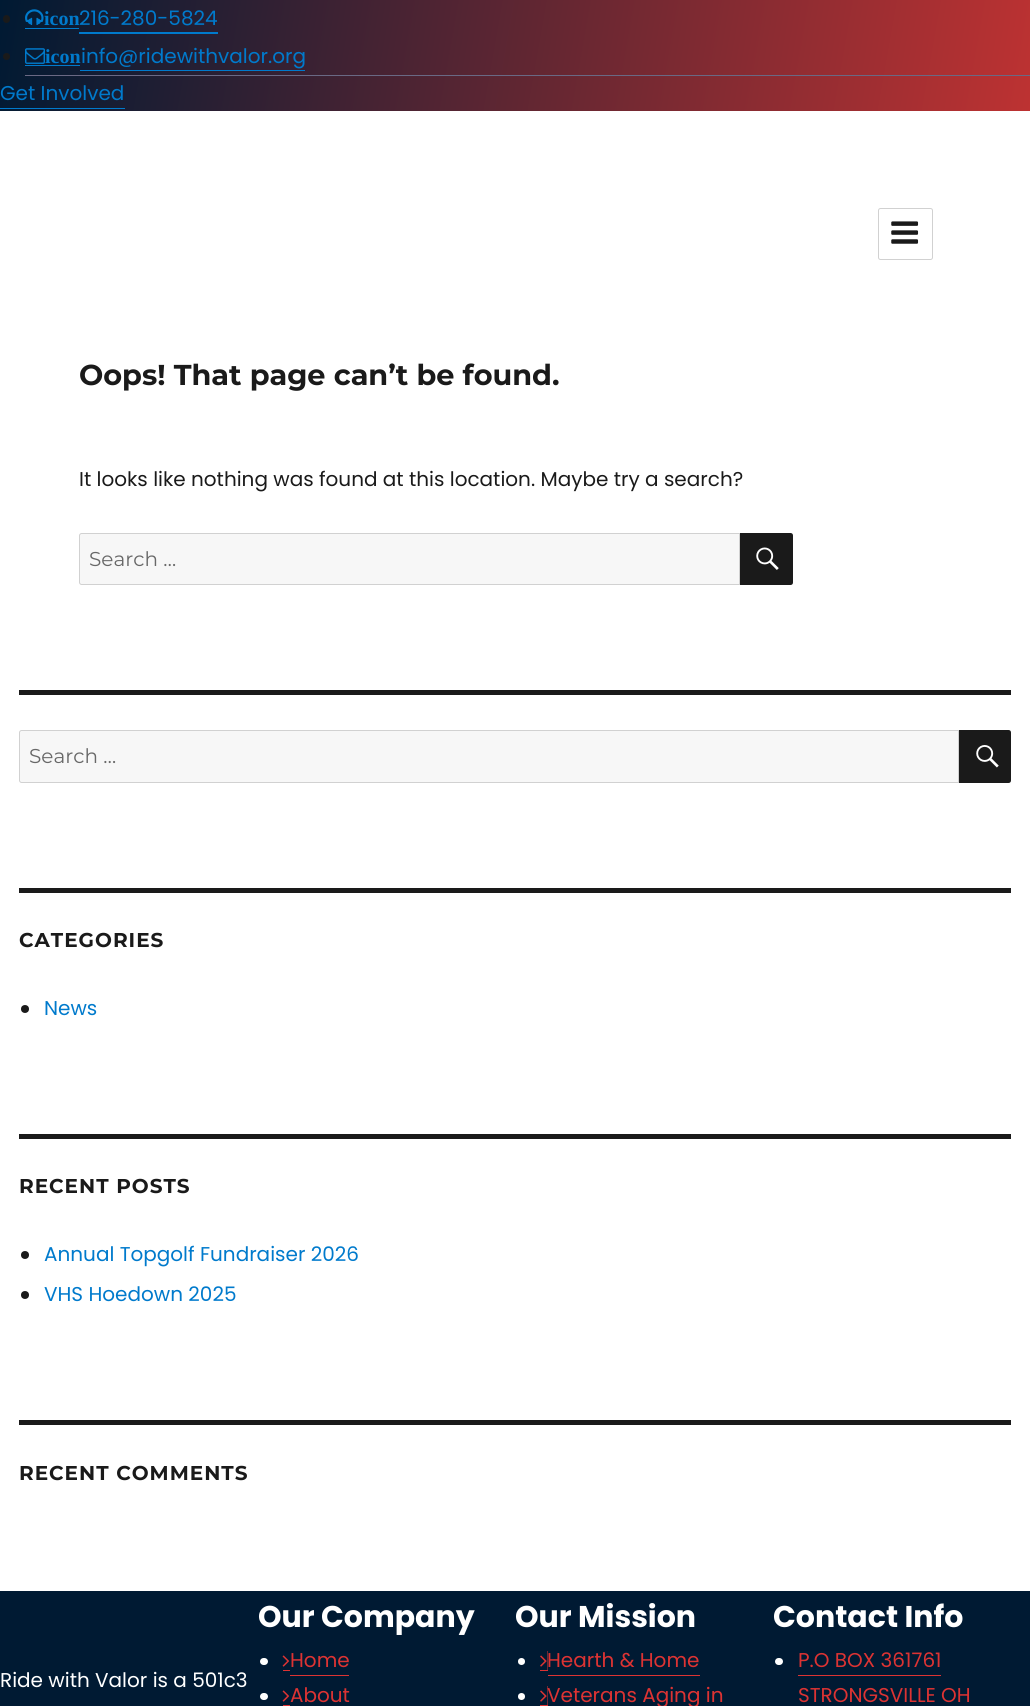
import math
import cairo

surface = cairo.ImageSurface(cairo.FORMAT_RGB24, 1030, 1706)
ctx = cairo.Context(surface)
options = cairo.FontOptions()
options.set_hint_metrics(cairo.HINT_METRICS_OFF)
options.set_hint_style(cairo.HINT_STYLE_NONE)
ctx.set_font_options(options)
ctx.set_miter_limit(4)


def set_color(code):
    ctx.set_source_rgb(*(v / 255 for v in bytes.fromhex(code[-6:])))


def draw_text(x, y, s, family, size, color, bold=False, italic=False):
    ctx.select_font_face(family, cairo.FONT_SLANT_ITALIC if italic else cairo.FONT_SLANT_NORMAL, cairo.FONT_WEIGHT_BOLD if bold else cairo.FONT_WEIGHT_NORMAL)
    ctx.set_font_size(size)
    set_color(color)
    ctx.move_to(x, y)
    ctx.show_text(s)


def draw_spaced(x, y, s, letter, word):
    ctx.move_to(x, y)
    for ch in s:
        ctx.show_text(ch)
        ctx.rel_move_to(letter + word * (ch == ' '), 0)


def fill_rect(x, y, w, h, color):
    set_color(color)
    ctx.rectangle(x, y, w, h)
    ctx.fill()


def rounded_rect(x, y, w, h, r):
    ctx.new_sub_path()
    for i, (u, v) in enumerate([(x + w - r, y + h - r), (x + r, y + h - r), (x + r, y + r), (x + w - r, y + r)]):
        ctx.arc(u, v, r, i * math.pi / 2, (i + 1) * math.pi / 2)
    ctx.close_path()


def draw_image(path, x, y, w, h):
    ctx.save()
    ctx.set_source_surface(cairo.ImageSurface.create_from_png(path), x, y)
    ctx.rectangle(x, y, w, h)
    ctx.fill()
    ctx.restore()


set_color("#ffffff")
ctx.paint()
gradient = cairo.LinearGradient(1024, 145, 6, -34)
gradient.add_color_stop_rgba(0, 0.741, 0.196, 0.196, 1)
gradient.add_color_stop_rgba(1, 0, 0.102, 0.2, 1)
ctx.set_source(gradient)
ctx.rectangle(0, 0, 1030, 111)
ctx.fill()
fill_rect(25, 75, 1005, 1, "#6a6984")
set_color("#1a1a1a")
rounded_rect(3, 15, 7, 8, 3.5)
ctx.fill()
set_color("#007acc")
ctx.new_path()
ctx.move_to(25, 28)
ctx.line_to(25, 29)
ctx.line_to(79, 29)
ctx.line_to(79, 9)
ctx.line_to(79, 28)
ctx.close_path()
ctx.fill()
ctx.new_path()
ctx.move_to(79, 32)
ctx.line_to(79, 34)
ctx.line_to(218, 34)
ctx.line_to(218, 5)
ctx.line_to(218, 32)
ctx.close_path()
ctx.fill()
draw_image("assets/img1.png", 25, 9, 19, 16)
draw_text(44, 25, "icon", "Liberation Serif", 20, "#007acc", bold=True)
draw_text(79, 25, "216-280-5824", "Poppins", 20, "#007acc")
set_color("#1a1a1a")
ctx.new_path()
ctx.arc(6.5, 56.5, 3.5, 0, 2 * math.pi)
ctx.fill()
fill_rect(25, 65, 55, 1, "#007acc")
fill_rect(80, 70, 225, 1, "#007acc")
draw_image("assets/img2.png", 25, 48, 20, 16)
draw_text(45, 63, "icon", "Liberation Serif", 20, "#007acc", bold=True)
draw_text(81, 63, "info@ridewithvalor.org", "Poppins", 20, "#007acc")
draw_text(0, 100, "Get Involved", "Poppins", 20, "#007acc")
fill_rect(0, 108, 125, 1, "#007acc")
rounded_rect(878.5, 208.5, 54, 51, 2)
set_color("#d1d1d1")
ctx.set_line_width(1)
ctx.stroke()
draw_image("assets/img3.png", 891, 221, 28, 23)
draw_text(79, 385, "Oops! That page can’t be found.", "Montserrat", 28.75, "#1a1a1a", bold=True)
draw_text(79, 486, "It looks like nothing was found at this location. Maybe try a search?", "Poppins", 20, "#1a1a1a")
set_color("#f7f7f7")
ctx.new_path()
ctx.move_to(81.5, 533.5)
ctx.line_to(739.5, 533.5)
ctx.line_to(739.5, 584.5)
ctx.line_to(81.5, 584.5)
ctx.curve_to(80.5, 584.5, 79.5, 583.5, 79.5, 582.5)
ctx.line_to(79.5, 535.5)
ctx.curve_to(79.5, 534.5, 80.5, 533.5, 81.5, 533.5)
ctx.close_path()
ctx.fill_preserve()
set_color("#d1d1d1")
ctx.stroke()
draw_text(89, 566, "Search …", "Montserrat", 20, "#686868")
set_color("#1a1a1a")
ctx.new_path()
ctx.move_to(740, 533)
ctx.line_to(790.5, 533)
ctx.curve_to(792, 533, 793, 534, 793, 535.5)
ctx.line_to(793, 582.5)
ctx.curve_to(793, 584, 792, 585, 790.5, 585)
ctx.line_to(740, 585)
ctx.close_path()
ctx.fill()
draw_image("assets/img4.png", 756, 547, 23, 23)
fill_rect(19, 690, 992, 5, "#1a1a1a")
set_color("#f7f7f7")
ctx.new_path()
ctx.move_to(21.5, 730.5)
ctx.line_to(958.5, 730.5)
ctx.line_to(958.5, 782.5)
ctx.line_to(21.5, 782.5)
ctx.curve_to(20.5, 782.5, 19.5, 781.5, 19.5, 780.5)
ctx.line_to(19.5, 732.5)
ctx.curve_to(19.5, 731.5, 20.5, 730.5, 21.5, 730.5)
ctx.close_path()
ctx.fill_preserve()
set_color("#d1d1d1")
ctx.stroke()
draw_text(29, 763, "Search …", "Montserrat", 20, "#686868")
set_color("#1a1a1a")
ctx.new_path()
ctx.move_to(959, 730)
ctx.line_to(1008.5, 730)
ctx.curve_to(1010, 730, 1011, 731, 1011, 732.5)
ctx.line_to(1011, 780.5)
ctx.curve_to(1011, 782, 1010, 783, 1008.5, 783)
ctx.line_to(959, 783)
ctx.close_path()
ctx.fill()
draw_image("assets/img5.png", 976, 745, 23, 23)
fill_rect(19, 888, 992, 5, "#1a1a1a")
ctx.select_font_face("Montserrat", cairo.FONT_SLANT_NORMAL, cairo.FONT_WEIGHT_BOLD)
draw_spaced(19, 947, "CATEGORIES", 1, 0)
ctx.new_path()
ctx.arc(25, 1009, 4, 0, 2 * math.pi)
ctx.fill()
draw_text(44, 1015, "News", "Poppins", 20, "#007acc")
fill_rect(19, 1134, 992, 5, "#1a1a1a")
ctx.select_font_face("Montserrat", cairo.FONT_SLANT_NORMAL, cairo.FONT_WEIGHT_BOLD)
draw_spaced(19, 1193, "RECENT POSTS", 1, 0)
ctx.new_path()
ctx.arc(25, 1255, 4, 0, 2 * math.pi)
ctx.fill()
draw_text(44, 1261, "Annual Topgolf Fundraiser 2026", "Poppins", 20, "#007acc")
set_color("#1a1a1a")
ctx.new_path()
ctx.arc(25, 1295, 4, 0, 2 * math.pi)
ctx.fill()
draw_text(44, 1301, "VHS Hoedown 2025", "Poppins", 20, "#007acc")
fill_rect(19, 1420, 992, 5, "#1a1a1a")
ctx.select_font_face("Montserrat", cairo.FONT_SLANT_NORMAL, cairo.FONT_WEIGHT_BOLD)
draw_spaced(19, 1480, "RECENT COMMENTS", 1, 0)
fill_rect(0, 1591, 1030, 115, "#001a33")
draw_text(0, 1687, "Ride with Valor is a 501c3", "Poppins", 20, "#ffffff")
draw_text(258, 1627, "Our Company", "Poppins", 30, "#ffffff", bold=True)
rounded_rect(260, 1658, 8, 7, 3.5)
ctx.fill()
fill_rect(283, 1670, 7, 1, "#dd3333")
ctx.new_path()
ctx.move_to(290, 1675)
ctx.line_to(290, 1676)
ctx.line_to(349, 1676)
ctx.line_to(349, 1648)
ctx.line_to(349, 1675)
ctx.close_path()
ctx.fill()
draw_image("assets/img6.png", 282, 1655, 8, 12)
draw_text(290, 1667, "Home", "Poppins", 20, "#dd3333")
set_color("#ffffff")
rounded_rect(260, 1693, 8, 7, 3.5)
ctx.fill()
fill_rect(283, 1705, 7, 1, "#dd3333")
draw_image("assets/img6.png", 282, 1690, 8, 12)
draw_text(290, 1702, "About", "Poppins", 20, "#dd3333")
draw_text(515, 1627, "Our Mission", "Poppins", 30, "#ffffff", bold=True)
ctx.new_path()
ctx.arc(521.5, 1661.5, 3.5, 0, 2 * math.pi)
ctx.fill()
set_color("#dd3333")
ctx.new_path()
ctx.move_to(540, 1670)
ctx.line_to(540, 1671)
ctx.line_to(548, 1671)
ctx.line_to(548, 1651)
ctx.line_to(547.5, 1651)
ctx.line_to(547.5, 1670)
ctx.close_path()
ctx.fill()
fill_rect(548, 1675, 152, 1, "#dd3333")
draw_image("assets/img7.png", 540, 1655, 7, 12)
draw_text(547, 1667, "Hearth & Home", "Poppins", 20, "#dd3333")
set_color("#ffffff")
ctx.new_path()
ctx.arc(521.5, 1696.5, 3.5, 0, 2 * math.pi)
ctx.fill()
set_color("#dd3333")
ctx.new_path()
ctx.move_to(540, 1705)
ctx.line_to(540, 1706)
ctx.line_to(548, 1706)
ctx.line_to(548, 1686)
ctx.line_to(547.5, 1686)
ctx.line_to(547.5, 1705)
ctx.close_path()
ctx.fill()
draw_image("assets/img7.png", 540, 1690, 7, 12)
draw_text(547, 1702, "Veterans Aging in", "Poppins", 20, "#dd3333")
draw_text(773, 1627, "Contact Info", "Poppins", 30, "#ffffff", bold=True)
rounded_rect(775, 1658, 8, 7, 3.5)
ctx.fill()
draw_text(798, 1667, "P.O BOX 361761", "Poppins", 20, "#dd3333")
fill_rect(798, 1675, 143, 1, "#dd3333")
draw_text(798, 1702, "STRONGSVILLE OH", "Poppins", 20, "#dd3333")
surface.write_to_png("output.png")
